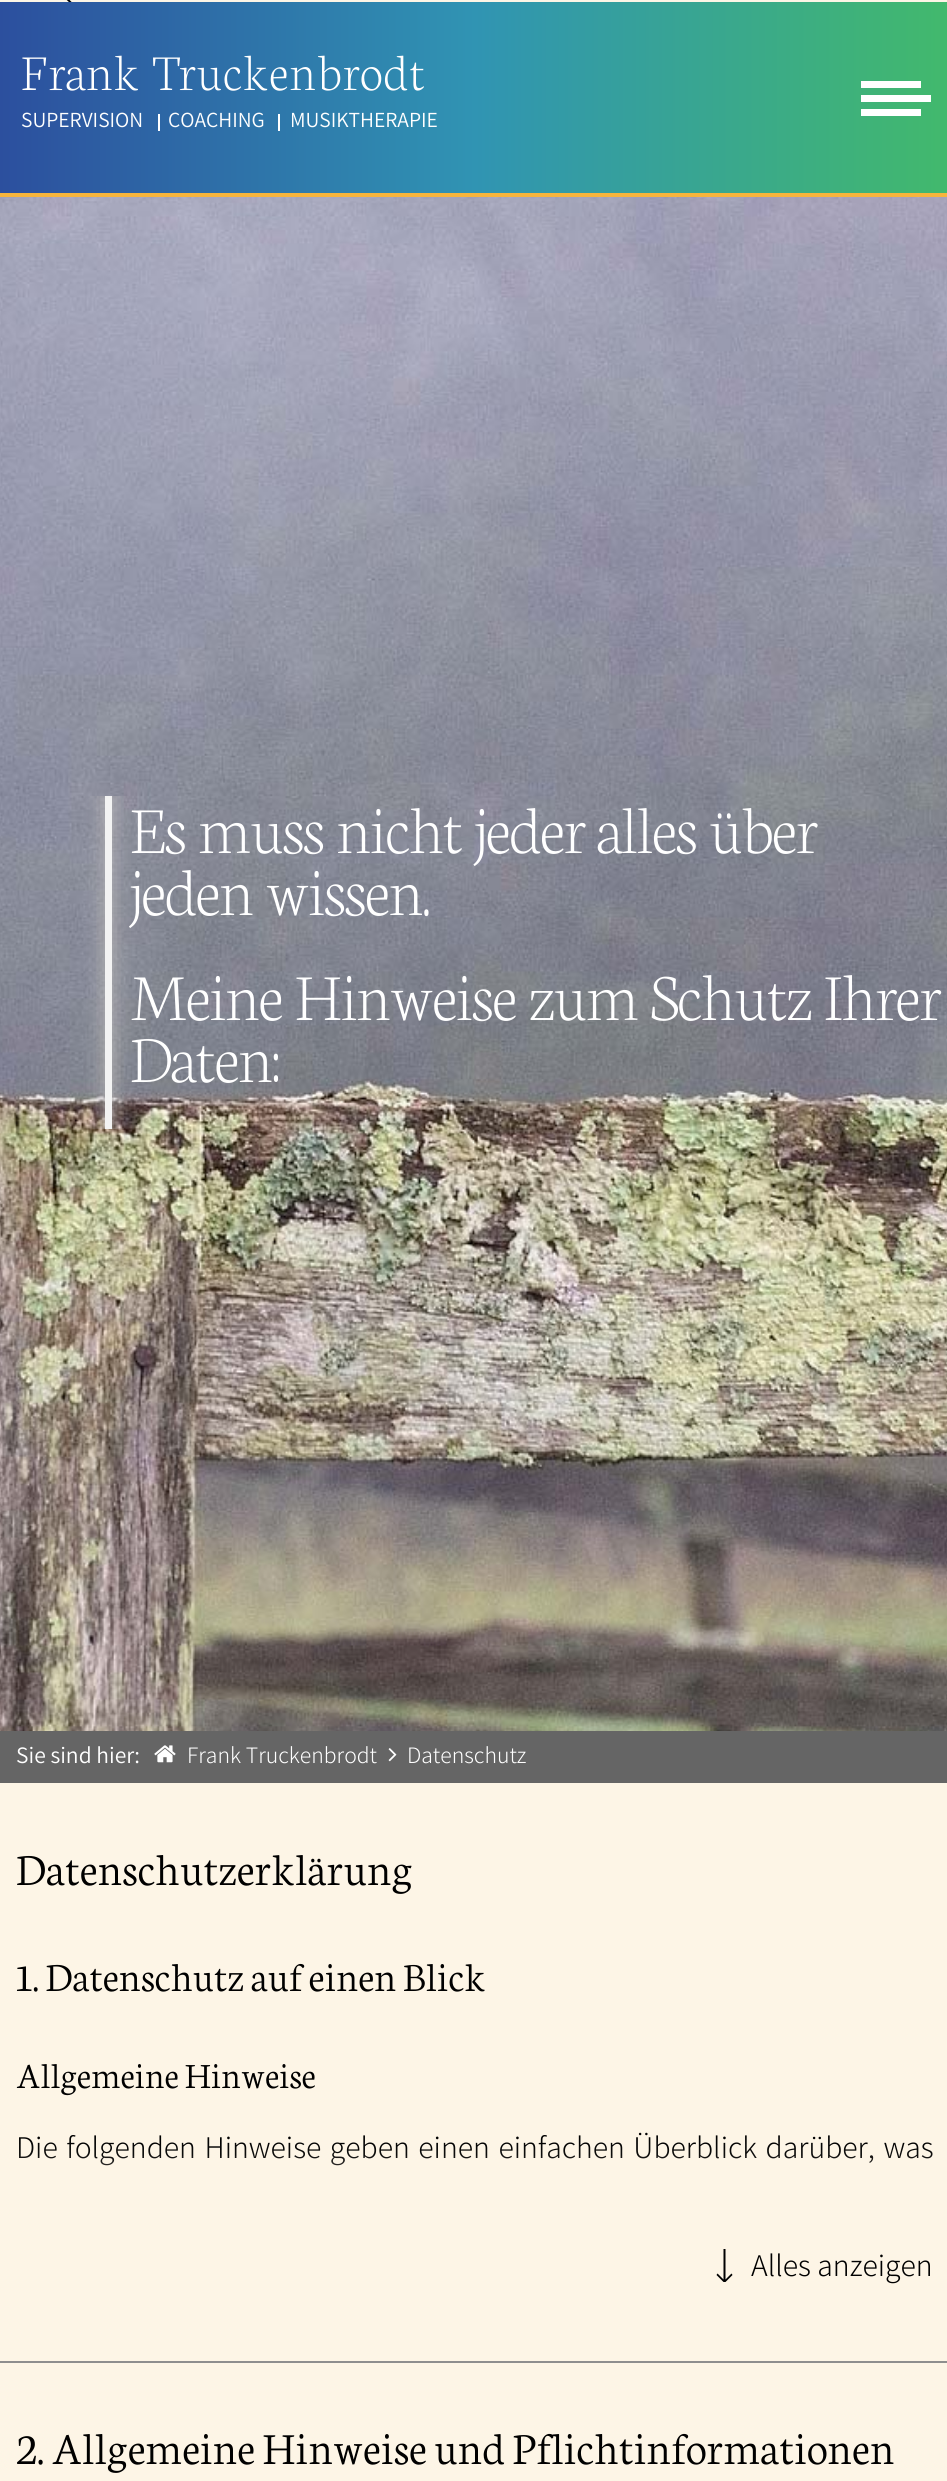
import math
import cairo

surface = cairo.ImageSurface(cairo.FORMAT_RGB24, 947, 2481)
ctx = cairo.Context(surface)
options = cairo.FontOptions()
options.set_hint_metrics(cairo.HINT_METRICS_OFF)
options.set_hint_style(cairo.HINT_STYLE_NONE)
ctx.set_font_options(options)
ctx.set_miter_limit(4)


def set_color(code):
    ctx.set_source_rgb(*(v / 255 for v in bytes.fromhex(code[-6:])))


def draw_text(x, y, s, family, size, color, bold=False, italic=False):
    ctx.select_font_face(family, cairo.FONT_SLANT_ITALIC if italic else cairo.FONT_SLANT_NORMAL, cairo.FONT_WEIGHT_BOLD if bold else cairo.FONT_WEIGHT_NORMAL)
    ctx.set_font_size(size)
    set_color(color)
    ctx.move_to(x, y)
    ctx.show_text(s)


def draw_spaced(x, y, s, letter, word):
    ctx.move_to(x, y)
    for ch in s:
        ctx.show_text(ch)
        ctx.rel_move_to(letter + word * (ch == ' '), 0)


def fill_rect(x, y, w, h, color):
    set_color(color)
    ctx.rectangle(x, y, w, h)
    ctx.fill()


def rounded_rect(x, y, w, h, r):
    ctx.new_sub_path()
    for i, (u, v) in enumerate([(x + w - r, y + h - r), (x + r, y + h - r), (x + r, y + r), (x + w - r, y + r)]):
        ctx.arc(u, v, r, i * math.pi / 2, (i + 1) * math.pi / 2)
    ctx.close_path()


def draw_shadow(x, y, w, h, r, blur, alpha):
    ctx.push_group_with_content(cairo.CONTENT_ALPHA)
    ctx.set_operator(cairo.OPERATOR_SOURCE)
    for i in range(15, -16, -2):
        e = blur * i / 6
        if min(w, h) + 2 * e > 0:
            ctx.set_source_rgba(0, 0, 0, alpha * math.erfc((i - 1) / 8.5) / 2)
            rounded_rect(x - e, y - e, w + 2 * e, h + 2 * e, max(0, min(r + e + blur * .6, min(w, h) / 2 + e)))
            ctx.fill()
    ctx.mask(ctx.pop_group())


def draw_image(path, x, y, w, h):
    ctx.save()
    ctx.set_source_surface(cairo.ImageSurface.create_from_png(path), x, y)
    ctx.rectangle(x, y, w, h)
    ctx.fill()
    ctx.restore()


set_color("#fdf5e6")
ctx.paint()
ctx.save()
ctx.rectangle(16, 0, 59, 2)
ctx.clip()
ctx.new_path()
ctx.move_to(66, 14.5)
ctx.line_to(74.5, 6)
ctx.line_to(66, -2)
set_color("#000000")
ctx.set_line_width(1.9)
ctx.set_line_join(cairo.LINE_JOIN_BEVEL)
ctx.stroke()
ctx.restore()
gradient = cairo.LinearGradient(0, 96, 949, 96)
gradient.add_color_stop_rgba(0, 0.173, 0.31, 0.62, 1)
gradient.add_color_stop_rgba(0.5, 0.188, 0.58, 0.702, 1)
gradient.add_color_stop_rgba(1, 0.259, 0.725, 0.424, 1)
ctx.set_source(gradient)
ctx.rectangle(0, 2, 947, 191)
ctx.fill()
fill_rect(0, 193, 947, 4, "#f7b53c")
ctx.select_font_face("Neuton Light")
ctx.set_font_size(53.5)
set_color("#ffffff")
draw_spaced(21, 90, "Frank Truckenbrodt", 0.6, 0)
fill_rect(158, 114, 2, 17, "#ffffff")
draw_text(21, 127, "SUPERVISION", "Assistant", 21.5, "#ffffff")
fill_rect(278, 114, 2, 17, "#ffffff")
draw_text(168, 127, "COACHING", "Assistant", 21.5, "#ffffff")
draw_text(290, 127, "MUSIKTHERAPIE", "Assistant", 21.5, "#ffffff")
fill_rect(861, 95, 70, 7, "#ffffff")
fill_rect(861, 81, 60, 7, "#ffffff")
fill_rect(861, 109, 60, 7, "#ffffff")
draw_image("assets/img1.png", 0, 197, 947, 1534)
ctx.save()
ctx.rectangle(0, 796, 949, 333)
ctx.clip()
set_color("#bbb9b9")
draw_shadow(105, 796, 7, 333, 0, 10.5, 1)
ctx.restore()
fill_rect(105, 796, 7, 333, "#f3f3f3")
ctx.select_font_face("Neuton Light")
ctx.set_font_size(70)
set_color("#ffffff")
draw_spaced(130, 853, "Es muss nicht jeder alles über", -1.8, 0)
draw_spaced(130, 915, "jeden wissen.", -1.8, 0)
draw_spaced(130, 1020, "Meine Hinweise zum Schutz Ihrer", -1.8, 0)
draw_spaced(130, 1082, "Daten:", -1.8, 0)
fill_rect(0, 1731, 947, 52, "#656565")
draw_text(16, 1763, "Sie sind hier:", "Assistant", 23.5, "#ffffff")
draw_image("assets/img2.png", 154, 1745, 22, 18)
draw_text(187, 1763, "Frank Truckenbrodt", "Assistant Light", 23.5, "#ffffff")
draw_image("assets/img3.png", 388, 1748, 9, 14)
draw_text(407, 1763, "Datenschutz", "Assistant Light", 23.5, "#ffffff")
fill_rect(0, 2361, 947, 2, "#8e8e8e")
draw_text(16, 1885, "Datenschutzerklärung", "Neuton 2 Light", 47.25, "#000000")
draw_text(16, 1991, "1. Datenschutz auf einen Blick", "Neuton 2 Light", 42.5, "#000000")
draw_text(16, 2088, "Allgemeine Hinweise", "Neuton 2 Light", 37.75, "#000000")
ctx.select_font_face("Assistant Light")
ctx.set_font_size(31.5)
draw_spaced(16, 2158, "Die folgenden Hinweise geben einen einfachen Überblick darüber, was", 0, 2.25)
ctx.save()
ctx.rectangle(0, 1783, 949, 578)
ctx.clip()
ctx.set_fill_rule(cairo.FILL_RULE_EVEN_ODD)
ctx.new_path()
ctx.move_to(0, 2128)
ctx.line_to(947, 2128)
ctx.line_to(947, 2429)
ctx.line_to(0, 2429)
ctx.close_path()
ctx.move_to(-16, 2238)
ctx.line_to(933, 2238)
ctx.line_to(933, 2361)
ctx.line_to(-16, 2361)
ctx.close_path()
ctx.clip()
set_color("#fdf5e6")
draw_shadow(-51, 2182, 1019, 193, 0, 17.5, 1)
ctx.restore()
ctx.save()
ctx.rectangle(698, 2249, 53, 33)
ctx.clip()
ctx.new_path()
ctx.move_to(723.5, 2249)
ctx.line_to(723.5, 2279.5)
ctx.line_to(717.5, 2273.5)
ctx.line_to(716.5, 2275)
ctx.line_to(724, 2282.5)
ctx.line_to(725, 2282.5)
ctx.line_to(732.5, 2275)
ctx.line_to(731.5, 2273.5)
ctx.line_to(725.5, 2279.5)
ctx.line_to(725.5, 2249)
ctx.close_path()
ctx.fill()
ctx.restore()
draw_text(751, 2276, "Alles anzeigen", "Assistant Light", 31.5, "#000000")
draw_text(16, 2464, "2. Allgemeine Hinweise und Pflichtinformationen", "Neuton 2 Light", 47.25, "#000000")
surface.write_to_png("output.png")
